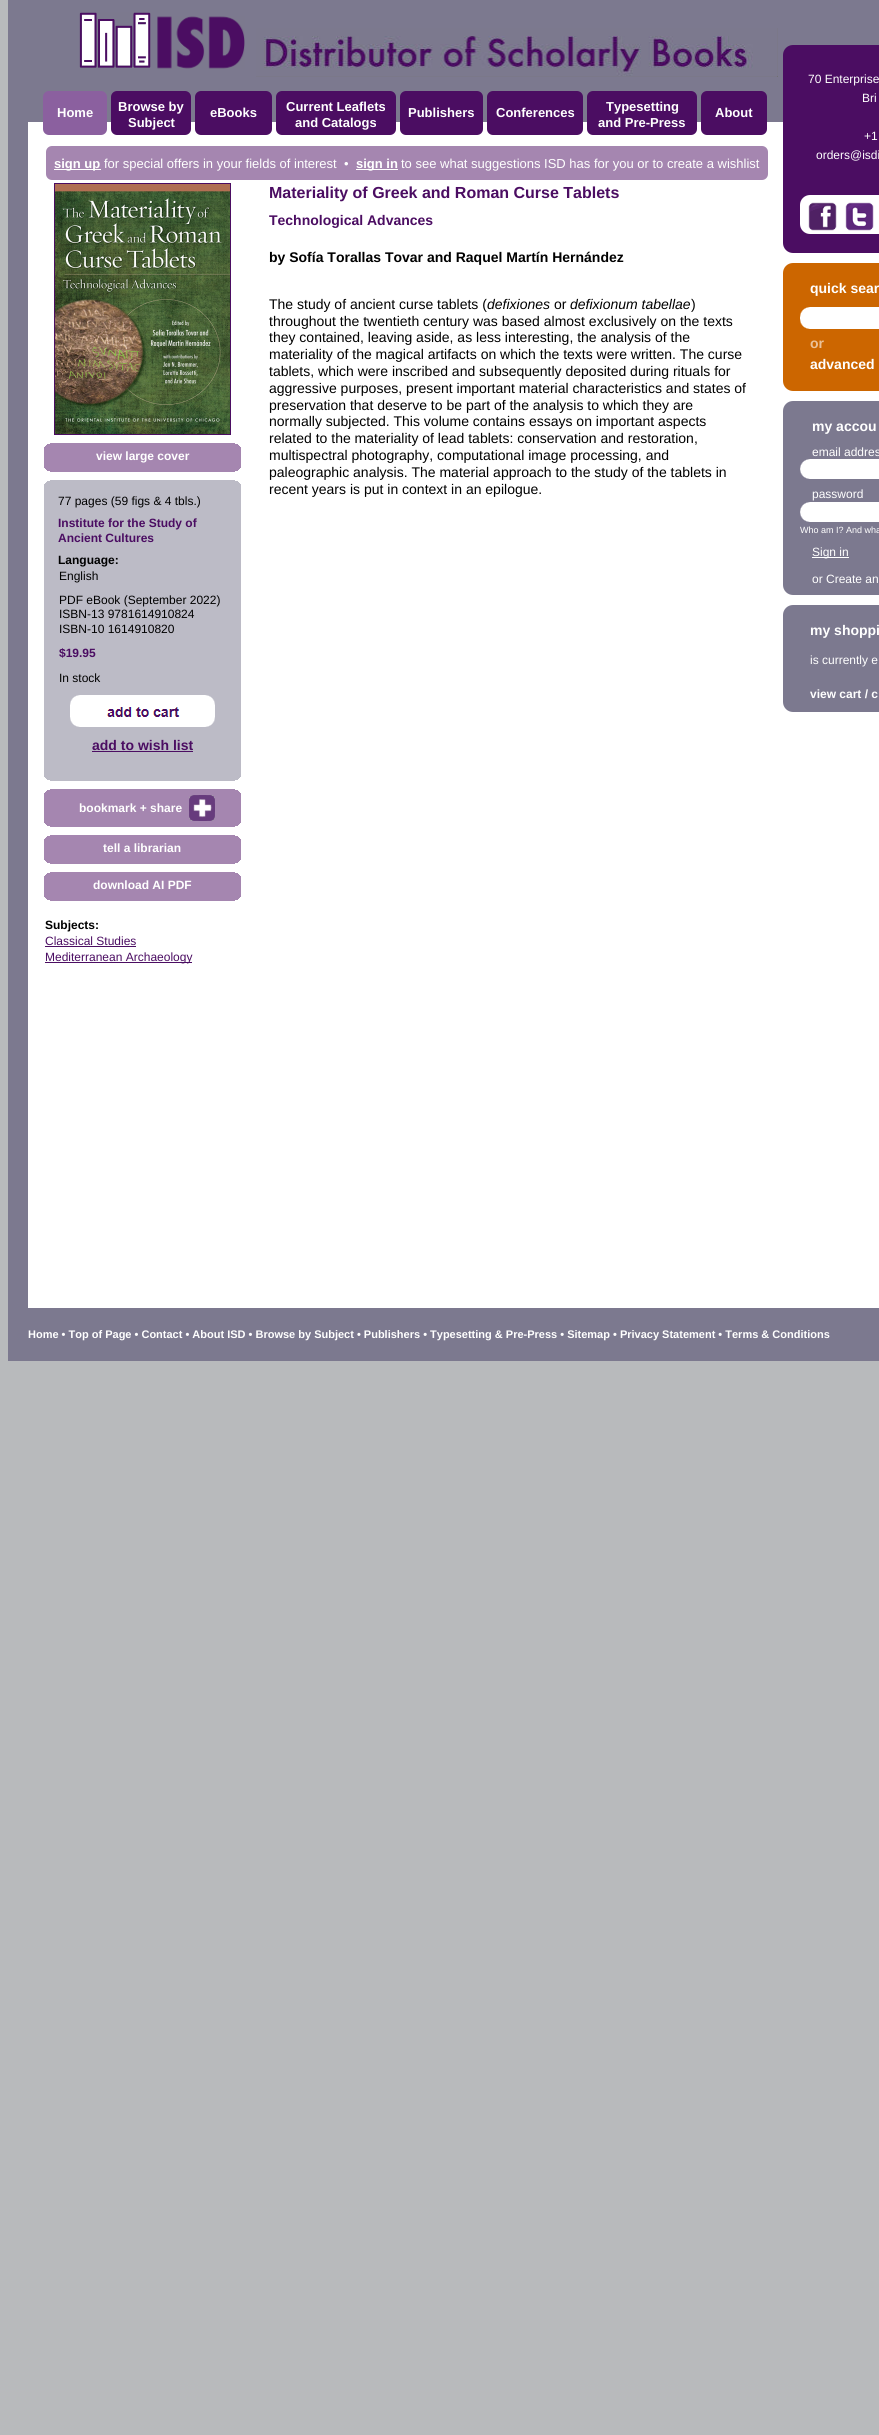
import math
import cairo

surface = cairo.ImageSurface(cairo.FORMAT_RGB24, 879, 2435)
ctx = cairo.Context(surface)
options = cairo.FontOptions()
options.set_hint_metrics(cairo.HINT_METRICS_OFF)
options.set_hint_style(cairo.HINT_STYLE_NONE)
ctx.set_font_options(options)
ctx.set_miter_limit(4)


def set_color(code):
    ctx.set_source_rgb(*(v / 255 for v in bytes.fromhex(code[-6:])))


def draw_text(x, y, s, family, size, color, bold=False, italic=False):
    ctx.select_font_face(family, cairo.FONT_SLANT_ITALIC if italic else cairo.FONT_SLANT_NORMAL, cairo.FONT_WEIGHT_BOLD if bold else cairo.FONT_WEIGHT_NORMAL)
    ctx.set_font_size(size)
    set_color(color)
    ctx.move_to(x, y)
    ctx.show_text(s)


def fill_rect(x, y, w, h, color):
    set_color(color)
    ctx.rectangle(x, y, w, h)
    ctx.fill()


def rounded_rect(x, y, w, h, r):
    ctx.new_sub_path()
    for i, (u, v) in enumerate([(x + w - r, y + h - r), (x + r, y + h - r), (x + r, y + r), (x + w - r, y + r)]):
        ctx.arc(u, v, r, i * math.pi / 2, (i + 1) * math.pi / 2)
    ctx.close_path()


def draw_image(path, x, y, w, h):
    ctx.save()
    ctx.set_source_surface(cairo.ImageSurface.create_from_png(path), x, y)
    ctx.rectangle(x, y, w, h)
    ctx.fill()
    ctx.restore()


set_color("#b8babc")
ctx.paint()
fill_rect(28, 122, 851, 1186, "#ffffff")
ctx.rectangle(18, -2, 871, 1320)
set_color("#7c798f")
ctx.set_line_width(20)
ctx.stroke()
fill_rect(28, 8, 851, 114, "#7c798f")
draw_image("assets/img1.png", 79, 12, 72, 56)
draw_image("assets/img2.png", 157, 16, 88, 53)
draw_image("assets/img3.png", 256, 28, 522, 49)
set_color("#8b609f")
rounded_rect(43, 91, 64, 44, 6)
ctx.fill()
draw_text(57, 117, "Home", "Liberation Sans", 13, "#ffffff", bold=True)
set_color("#4b0d62")
rounded_rect(111, 91, 80, 44, 6)
ctx.fill()
draw_text(118, 111, "Browse by", "Liberation Sans", 13, "#ffffff", bold=True)
draw_text(128, 127, "Subject", "Liberation Sans", 13, "#ffffff", bold=True)
set_color("#4b0d62")
rounded_rect(195, 91, 77, 44, 6)
ctx.fill()
draw_text(210, 117, "eBooks", "Liberation Sans", 13, "#ffffff", bold=True)
set_color("#4b0d62")
rounded_rect(276, 91, 120, 44, 6)
ctx.fill()
draw_text(286, 111, "Current Leaflets", "Liberation Sans", 13, "#ffffff", bold=True)
draw_text(295, 127, "and Catalogs", "Liberation Sans", 13, "#ffffff", bold=True)
set_color("#4b0d62")
rounded_rect(400, 91, 83, 44, 6)
ctx.fill()
draw_text(408, 117, "Publishers", "Liberation Sans", 13, "#ffffff", bold=True)
set_color("#4b0d62")
rounded_rect(487, 91, 96, 44, 6)
ctx.fill()
draw_text(496, 117, "Conferences", "Liberation Sans", 13, "#ffffff", bold=True)
set_color("#4b0d62")
rounded_rect(587, 91, 110, 44, 6)
ctx.fill()
draw_text(606, 111, "Typesetting", "Liberation Sans", 13, "#ffffff", bold=True)
draw_text(598, 127, "and Pre-Press", "Liberation Sans", 13, "#ffffff", bold=True)
set_color("#4b0d62")
rounded_rect(701, 91, 66, 44, 6)
ctx.fill()
draw_text(715, 117, "About", "Liberation Sans", 13, "#ffffff", bold=True)
set_color("#4b0d62")
rounded_rect(783, 45, 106, 208, 10)
ctx.fill()
draw_text(808, 83, "70 Enterprise", "Liberation Sans", 12, "#ffffff")
draw_text(862, 102, "Bri", "Liberation Sans", 12, "#ffffff")
draw_text(864, 140, "+1", "Liberation Sans", 12, "#ffffff")
draw_text(816, 159, "orders@isdi", "Liberation Sans", 12, "#ffffff")
rounded_rect(800, 195, 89, 39, 10)
ctx.fill()
draw_image("assets/img4.png", 808, 202, 29, 29)
draw_image("assets/img5.png", 845, 202, 29, 29)
set_color("#cc6600")
rounded_rect(783, 263, 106, 128, 10)
ctx.fill()
draw_text(810, 293, "quick sear", "Liberation Sans", 14, "#ffffff", bold=True)
draw_image("assets/img6.png", 800, 307, 10, 22)
fill_rect(810, 307, 69, 22, "#ffffff")
draw_text(810, 348, "or", "Liberation Sans", 14, "#ebc299", bold=True)
draw_text(810, 369, "advanced", "Liberation Sans", 14, "#ffffff", bold=True)
set_color("#7c798f")
rounded_rect(783, 401, 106, 194, 10)
ctx.fill()
draw_text(812, 431, "my accou", "Liberation Sans", 14, "#ffffff", bold=True)
draw_text(812, 456, "email addres", "Liberation Sans", 12, "#ffffff")
draw_image("assets/img7.png", 800, 459, 12, 20)
fill_rect(812, 459, 67, 20, "#ffffff")
draw_text(812, 498, "password", "Liberation Sans", 12, "#ffffff")
draw_image("assets/img7.png", 800, 502, 12, 20)
fill_rect(812, 502, 67, 20, "#ffffff")
draw_text(800, 533, "Who am I? And wha", "Liberation Sans", 9, "#ffffff")
fill_rect(812, 557, 37, 1, "#ffffff")
draw_text(812, 556, "Sign in", "Liberation Sans", 12, "#ffffff")
draw_text(812, 583, "or Create an", "Liberation Sans", 12, "#ffffff")
set_color("#7c798f")
rounded_rect(783, 605, 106, 107, 10)
ctx.fill()
draw_text(810, 635, "my shoppi", "Liberation Sans", 14, "#ffffff", bold=True)
draw_text(810, 664, "is currently e", "Liberation Sans", 12, "#ffffff")
draw_text(810, 698, "view cart / c", "Liberation Sans", 12, "#ffffff", bold=True)
set_color("#a586b0")
rounded_rect(46, 146, 722, 34, 6)
ctx.fill()
fill_rect(54, 169, 47, 1, "#ffffff")
draw_text(54, 168, "sign up", "Liberation Sans", 13, "#ffffff", bold=True)
draw_text(104, 168, "for special offers in your fields of interest  •", "Liberation Sans", 13, "#ffffff")
fill_rect(356, 169, 42, 1, "#ffffff")
draw_text(356, 168, "sign in", "Liberation Sans", 13, "#ffffff", bold=True)
draw_text(401, 168, "to see what suggestions ISD has for you or to create a wishlist", "Liberation Sans", 13, "#ffffff")
draw_text(269, 198, "Materiality of Greek and Roman Curse Tablets", "Liberation Sans", 16, "#4b0d62", bold=True)
draw_text(269, 225, "Technological Advances", "Liberation Sans", 14, "#4b0d62", bold=True)
draw_text(269, 262, "by Sofía Torallas Tovar and Raquel Martín Hernández", "Liberation Sans", 14, "#000000", bold=True)
draw_text(269, 309, "The study of ancient curse tablets (", "Liberation Sans", 14, "#000000")
draw_text(487, 309, "defixiones", "Liberation Sans", 14, "#000000", italic=True)
draw_text(554, 309, "or", "Liberation Sans", 14, "#000000")
draw_text(570, 309, "defixionum tabellae", "Liberation Sans", 14, "#000000", italic=True)
draw_text(691, 309, ")", "Liberation Sans", 14, "#000000")
draw_text(269, 326, "throughout the twentieth century was based almost exclusively on the texts", "Liberation Sans", 14, "#000000")
draw_text(269, 342, "they contained, leaving aside, as less interesting, the analysis of the", "Liberation Sans", 14, "#000000")
draw_text(269, 359, "materiality of the magical artifacts on which the texts were written. The curse", "Liberation Sans", 14, "#000000")
draw_text(269, 376, "tablets, which were inscribed and subsequently deposited during rituals for", "Liberation Sans", 14, "#000000")
draw_text(269, 393, "aggressive purposes, present important material characteristics and states of", "Liberation Sans", 14, "#000000")
draw_text(269, 410, "preservation that deserve to be part of the analysis to which they are", "Liberation Sans", 14, "#000000")
draw_text(269, 426, "normally subjected. This volume contains essays on important aspects", "Liberation Sans", 14, "#000000")
draw_text(269, 443, "related to the materiality of lead tablets: conservation and restoration,", "Liberation Sans", 14, "#000000")
draw_text(269, 460, "multispectral photography, computational image processing, and", "Liberation Sans", 14, "#000000")
draw_text(269, 477, "paleographic analysis. The material approach to the study of the tablets in", "Liberation Sans", 14, "#000000")
draw_text(269, 494, "recent years is put in context in an epilogue.", "Liberation Sans", 14, "#000000")
ctx.rectangle(54.5, 183.5, 176, 251)
set_color("#4b0d62")
ctx.set_line_width(1)
ctx.stroke()
draw_image("assets/img8.png", 55, 184, 175, 250)
fill_rect(50, 443, 185, 1, "#a586b0")
fill_rect(47, 444, 191, 1, "#a586b0")
fill_rect(46, 445, 193, 1, "#a586b0")
fill_rect(45, 446, 195, 1, "#a586b0")
fill_rect(44, 447, 197, 2, "#a586b0")
fill_rect(44, 449, 197, 19, "#a586b0")
draw_text(96, 460, "view large cover", "Liberation Sans", 12, "#ffffff", bold=True)
fill_rect(45, 468, 195, 1, "#a586b0")
fill_rect(46, 469, 193, 1, "#a586b0")
fill_rect(47, 470, 191, 1, "#a586b0")
fill_rect(50, 471, 185, 1, "#a586b0")
fill_rect(50, 480, 185, 1, "#bcbbc6")
fill_rect(47, 481, 191, 1, "#bcbbc6")
fill_rect(46, 482, 193, 1, "#bcbbc6")
fill_rect(45, 483, 195, 1, "#bcbbc6")
fill_rect(44, 484, 197, 2, "#bcbbc6")
fill_rect(44, 486, 197, 291, "#bcbbc6")
draw_text(58, 505, "77 pages (59 figs & 4 tbls.)", "Liberation Sans", 12, "#000000")
draw_text(58, 527, "Institute for the Study of", "Liberation Sans", 12, "#4b0d62", bold=True)
draw_text(58, 542, "Ancient Cultures", "Liberation Sans", 12, "#4b0d62", bold=True)
draw_text(58, 564, "Language:", "Liberation Sans", 12, "#000000", bold=True)
draw_text(59, 580, "English", "Liberation Sans", 12, "#000000")
draw_text(59, 604, "PDF eBook (September 2022)", "Liberation Sans", 12, "#000000")
draw_text(59, 618, "ISBN-13 9781614910824", "Liberation Sans", 12, "#000000")
draw_text(59, 633, "ISBN-10 1614910820", "Liberation Sans", 12, "#000000")
draw_text(59, 657, "$19.95", "Liberation Sans", 12, "#4b0d62", bold=True)
draw_text(59, 682, "In stock", "Liberation Sans", 12, "#000000")
draw_image("assets/img9.png", 70, 695, 145, 32)
draw_text(92, 750, "add to wish list", "Liberation Sans", 14, "#4b0d62", bold=True)
fill_rect(92, 751, 101, 1, "#4b0d62")
fill_rect(45, 777, 195, 1, "#bcbbc6")
fill_rect(46, 778, 193, 1, "#bcbbc6")
fill_rect(47, 779, 191, 1, "#bcbbc6")
fill_rect(50, 780, 185, 1, "#bcbbc6")
fill_rect(50, 789, 185, 1, "#a586b0")
fill_rect(47, 790, 191, 1, "#a586b0")
fill_rect(46, 791, 193, 1, "#a586b0")
fill_rect(45, 792, 195, 1, "#a586b0")
fill_rect(44, 793, 197, 2, "#a586b0")
fill_rect(44, 795, 197, 28, "#a586b0")
draw_text(79, 812, "bookmark + share", "Liberation Sans", 12, "#ffffff", bold=True)
draw_image("assets/img10.png", 189, 795, 26, 26)
fill_rect(45, 823, 195, 1, "#a586b0")
fill_rect(46, 824, 193, 1, "#a586b0")
fill_rect(47, 825, 191, 1, "#a586b0")
fill_rect(50, 826, 185, 1, "#a586b0")
fill_rect(50, 835, 185, 1, "#a586b0")
fill_rect(47, 836, 191, 1, "#a586b0")
fill_rect(46, 837, 193, 1, "#a586b0")
fill_rect(45, 838, 195, 1, "#a586b0")
fill_rect(44, 839, 197, 2, "#a586b0")
fill_rect(44, 841, 197, 19, "#a586b0")
draw_text(103, 852, "tell a librarian", "Liberation Sans", 12, "#ffffff", bold=True)
fill_rect(45, 860, 195, 1, "#a586b0")
fill_rect(46, 861, 193, 1, "#a586b0")
fill_rect(47, 862, 191, 1, "#a586b0")
fill_rect(50, 863, 185, 1, "#a586b0")
fill_rect(50, 872, 185, 1, "#a586b0")
fill_rect(47, 873, 191, 1, "#a586b0")
fill_rect(46, 874, 193, 1, "#a586b0")
fill_rect(45, 875, 195, 1, "#a586b0")
fill_rect(44, 876, 197, 2, "#a586b0")
fill_rect(44, 878, 197, 19, "#a586b0")
draw_text(93, 889, "download AI PDF", "Liberation Sans", 12, "#ffffff", bold=True)
fill_rect(45, 897, 195, 1, "#a586b0")
fill_rect(46, 898, 193, 1, "#a586b0")
fill_rect(47, 899, 191, 1, "#a586b0")
fill_rect(50, 900, 185, 1, "#a586b0")
draw_text(45, 929, "Subjects:", "Liberation Sans", 12, "#000000", bold=True)
draw_text(45, 945, "Classical Studies", "Liberation Sans", 12, "#4b0d62")
fill_rect(45, 946, 91, 1, "#4b0d62")
fill_rect(45, 962, 147, 1, "#4b0d62")
draw_text(45, 961, "Mediterranean Archaeology", "Liberation Sans", 12, "#4b0d62")
fill_rect(8, 1328, 871, 33, "#7c798f")
draw_text(28, 1338, "Home • Top of Page • Contact • About ISD • Browse by Subject • Publishers • Typesetting & Pre-Press • Sitemap • Privacy Statement • Terms & Conditions", "Liberation Sans", 11, "#ffffff", bold=True)
surface.write_to_png("output.png")
